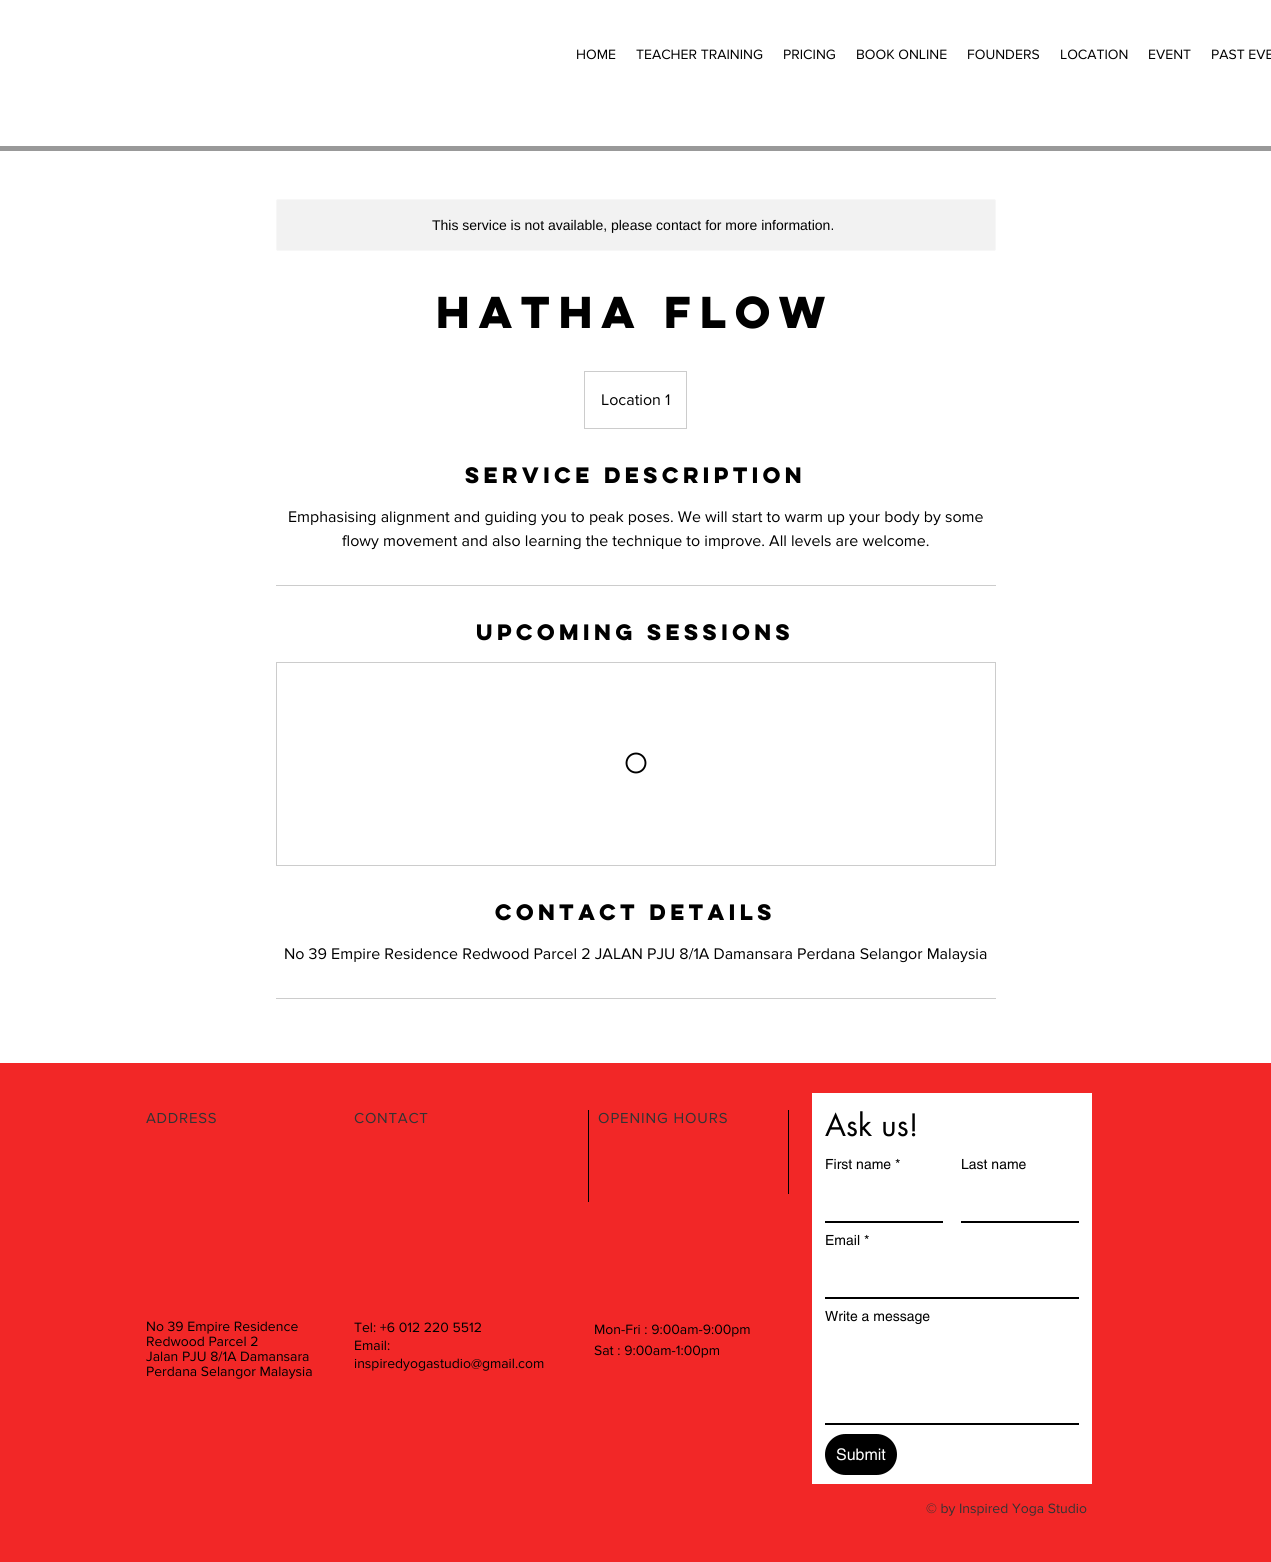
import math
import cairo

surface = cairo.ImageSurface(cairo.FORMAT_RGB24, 1271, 1562)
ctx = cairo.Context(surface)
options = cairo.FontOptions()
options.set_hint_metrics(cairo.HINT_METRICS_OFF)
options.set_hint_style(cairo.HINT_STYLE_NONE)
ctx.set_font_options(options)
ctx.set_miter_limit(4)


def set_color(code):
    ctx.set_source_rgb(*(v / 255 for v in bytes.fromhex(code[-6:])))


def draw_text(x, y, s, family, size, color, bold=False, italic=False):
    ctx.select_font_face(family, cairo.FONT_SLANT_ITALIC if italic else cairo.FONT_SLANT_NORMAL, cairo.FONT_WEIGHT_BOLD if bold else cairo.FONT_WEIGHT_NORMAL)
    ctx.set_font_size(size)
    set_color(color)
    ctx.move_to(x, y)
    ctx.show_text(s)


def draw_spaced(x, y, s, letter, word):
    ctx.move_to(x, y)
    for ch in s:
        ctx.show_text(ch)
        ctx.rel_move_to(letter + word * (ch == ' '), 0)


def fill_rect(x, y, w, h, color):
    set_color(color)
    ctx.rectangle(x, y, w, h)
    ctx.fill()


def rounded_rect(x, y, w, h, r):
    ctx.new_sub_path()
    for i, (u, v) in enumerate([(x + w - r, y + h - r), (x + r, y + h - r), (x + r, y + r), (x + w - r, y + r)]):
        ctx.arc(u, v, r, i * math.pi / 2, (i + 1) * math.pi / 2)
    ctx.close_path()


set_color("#ffffff")
ctx.paint()
draw_text(576, 59, "HOME", "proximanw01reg", 14, "#000000")
draw_text(636, 59, "TEACHER TRAINING", "proximanw01reg", 14, "#000000")
draw_text(783, 59, "PRICING", "proximanw01reg", 14, "#000000")
draw_text(856, 59, "BOOK ONLINE", "proximanw01reg", 14, "#000000")
draw_text(967, 59, "FOUNDERS", "proximanw01reg", 14, "#000000")
draw_text(1060, 59, "LOCATION", "proximanw01reg", 14, "#000000")
draw_text(1148, 59, "EVENT", "proximanw01reg", 14, "#000000")
draw_text(1211, 59, "PAST EVE", "proximanw01reg", 14, "#000000")
fill_rect(0, 146, 1271, 5, "#999999")
set_color("#f2f2f2")
rounded_rect(276.5, 199.5, 719, 51, 1.5)
ctx.fill_preserve()
set_color("#f7f7f7")
ctx.set_line_width(1)
ctx.stroke()
draw_text(432, 230, "This service is not available, please contact for more information.", "Liberation Sans", 14, "#000000")
draw_text(436, 328, "Hatha Flow", "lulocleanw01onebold", 40, "#000000", bold=True)
ctx.rectangle(584.5, 371.5, 102, 57)
set_color("#cccccc")
ctx.stroke()
draw_text(601, 405, "Location 1", "proximanw01reg", 16, "#000000")
draw_text(465, 483, "Service Description", "lulocleanw01onebold", 20, "#000000", bold=True)
draw_text(288, 522, "Emphasising alignment and guiding you to peak poses. We will start to warm up your body by some", "proximanw01reg", 16, "#000000")
draw_text(342, 546, "flowy movement and also learning the technique to improve. All levels are welcome.", "proximanw01reg", 16, "#000000")
fill_rect(276, 585, 720, 1, "#cccccc")
draw_text(476, 640, "Upcoming Sessions", "lulocleanw01onebold", 20, "#000000", bold=True)
ctx.rectangle(276.5, 662.5, 719, 203)
set_color("#cccccc")
ctx.stroke()
ctx.arc(636, 763, 9.5, 0, 2 * math.pi)
set_color("#000000")
ctx.set_line_width(1.9)
ctx.stroke()
draw_text(495, 920, "Contact Details", "lulocleanw01onebold", 20, "#000000", bold=True)
draw_text(284, 959, "No 39 Empire Residence Redwood Parcel 2 JALAN PJU 8/1A Damansara Perdana Selangor Malaysia", "proximanw01reg", 16, "#000000")
fill_rect(276, 998, 720, 1, "#cccccc")
fill_rect(0, 1063, 1271, 499, "#f22727")
ctx.set_font_size(15)
set_color("#333333")
draw_spaced(146, 1123, "ADDRESS", 0.75, 0)
draw_spaced(354, 1123, "CONTACT", 0.75, 0)
fill_rect(588, 1110, 1, 92, "#000000")
set_color("#333333")
draw_spaced(598, 1123, "OPENING HOURS", 0.9, 0)
fill_rect(788, 1110, 1, 84, "#000000")
fill_rect(812, 1093, 280, 391, "#ffffff")
draw_text(825, 1136, "Ask us!", "futura", 30, "#000000")
draw_text(825, 1169, "First name *", "helvetica", 14, "#000000")
draw_text(961, 1169, "Last name", "helvetica", 14, "#000000")
fill_rect(825, 1221, 118, 2, "#000000")
fill_rect(961, 1221, 118, 2, "#000000")
draw_text(825, 1245, "Email *", "helvetica", 14, "#000000")
fill_rect(825, 1297, 254, 2, "#000000")
draw_text(825, 1321, "Write a message", "helvetica", 14, "#000000")
fill_rect(825, 1423, 254, 2, "#000000")
rounded_rect(825, 1434, 72, 41, 20.5)
ctx.fill()
draw_text(836, 1460, "Submit", "helvetica", 16, "#ffffff")
draw_text(146, 1331, "No 39 Empire Residence", "proximanw01reg", 14, "#000000")
draw_text(146, 1346, "Redwood Parcel 2", "proximanw01reg", 14, "#000000")
draw_text(146, 1361, "Jalan PJU 8/1A Damansara", "proximanw01reg", 14, "#000000")
draw_text(146, 1376, "Perdana Selangor Malaysia", "proximanw01reg", 14, "#000000")
draw_text(354, 1332, "Tel: +6 012 220 5512", "proximanw01reg", 14, "#000000")
draw_text(354, 1350, "Email:", "proximanw01reg", 14, "#000000")
draw_text(354, 1368, "inspiredyogastudio@gmail.com", "proximanw01reg", 14, "#000000")
draw_text(594, 1334, "Mon-Fri : 9:00am-9:00pm", "proximanw01reg", 14, "#000000")
draw_text(594, 1355, "Sat : 9:00am-1:00pm", "proximanw01reg", 14, "#000000")
draw_text(926, 1513, "© by Inspired Yoga Studio", "proximanw01reg", 14, "#333333")
surface.write_to_png("output.png")
